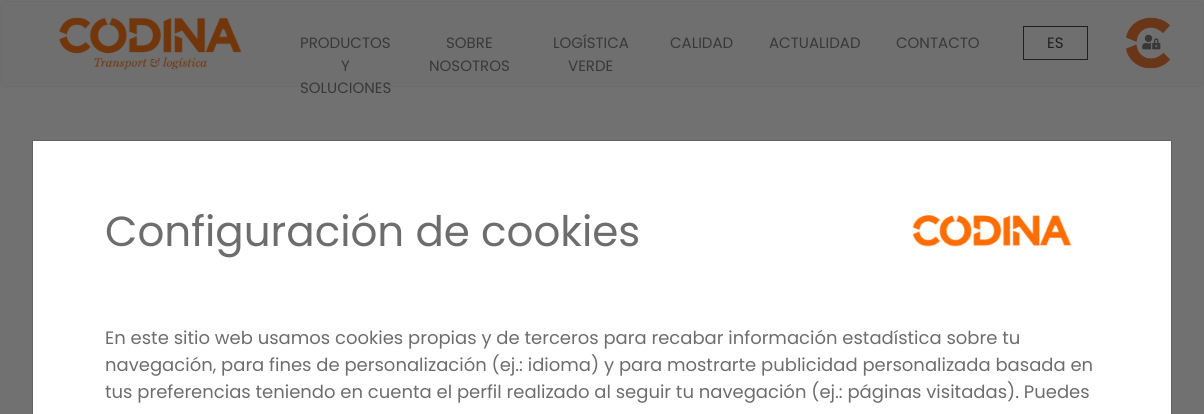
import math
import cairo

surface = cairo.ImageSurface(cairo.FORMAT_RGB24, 1204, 414)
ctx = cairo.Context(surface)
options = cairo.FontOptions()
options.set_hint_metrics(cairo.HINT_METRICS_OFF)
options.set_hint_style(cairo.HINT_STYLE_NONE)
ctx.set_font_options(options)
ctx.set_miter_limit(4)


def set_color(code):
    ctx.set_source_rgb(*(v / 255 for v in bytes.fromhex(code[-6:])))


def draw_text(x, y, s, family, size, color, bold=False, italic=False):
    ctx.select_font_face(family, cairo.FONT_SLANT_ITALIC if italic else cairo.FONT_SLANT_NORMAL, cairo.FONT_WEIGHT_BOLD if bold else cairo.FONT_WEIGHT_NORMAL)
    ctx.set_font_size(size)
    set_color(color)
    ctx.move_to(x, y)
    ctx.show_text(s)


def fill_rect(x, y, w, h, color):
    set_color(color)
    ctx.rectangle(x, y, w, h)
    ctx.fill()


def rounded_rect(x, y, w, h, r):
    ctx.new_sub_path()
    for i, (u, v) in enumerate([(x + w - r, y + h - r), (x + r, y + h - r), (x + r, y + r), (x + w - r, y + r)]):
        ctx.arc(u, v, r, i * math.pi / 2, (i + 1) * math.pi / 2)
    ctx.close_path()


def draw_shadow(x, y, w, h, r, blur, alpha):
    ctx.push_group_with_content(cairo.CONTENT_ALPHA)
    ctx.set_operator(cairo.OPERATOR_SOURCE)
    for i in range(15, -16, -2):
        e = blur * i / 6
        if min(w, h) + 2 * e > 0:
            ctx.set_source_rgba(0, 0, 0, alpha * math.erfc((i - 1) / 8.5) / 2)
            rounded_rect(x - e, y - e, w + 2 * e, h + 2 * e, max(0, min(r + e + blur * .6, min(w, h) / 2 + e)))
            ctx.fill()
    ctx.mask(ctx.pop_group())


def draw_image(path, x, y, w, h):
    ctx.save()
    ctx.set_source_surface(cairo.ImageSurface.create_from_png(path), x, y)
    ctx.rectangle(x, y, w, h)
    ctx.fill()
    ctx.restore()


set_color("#717171")
ctx.paint()
set_color("#3e3e3e")
draw_shadow(2, 3, 1200, 82, 0, 1, 1)
fill_rect(1, 2, 1202, 84, "#6f6f6f")
draw_image("assets/img1.png", 59, 17, 183, 53)
draw_text(300, 48, "PRODUCTOS", "Poppins", 15, "#383838")
draw_text(341, 71, "Y", "Poppins", 15, "#383838")
draw_text(300, 93, "SOLUCIONES", "Poppins", 15, "#383838")
draw_text(446, 48, "SOBRE", "Poppins", 15, "#383838")
draw_text(429, 71, "NOSOTROS", "Poppins", 15, "#383838")
draw_text(553, 48, "LOGÍSTICA", "Poppins", 15, "#383838")
draw_text(568, 71, "VERDE", "Poppins", 15, "#383838")
draw_text(670, 48, "CALIDAD", "Poppins", 15, "#383838")
draw_text(769, 48, "ACTUALIDAD", "Poppins", 15, "#383838")
draw_text(896, 48, "CONTACTO", "Poppins", 15, "#383838")
ctx.rectangle(1023.5, 26.5, 64, 33)
set_color("#1f1f1f")
ctx.set_line_width(1)
ctx.stroke()
draw_text(1047, 48, "ES", "Poppins", 15, "#1f1f1f")
draw_image("assets/img2.png", 1126, 17, 45, 52)
set_color("#ffffff")
ctx.rectangle(32.5, 140.5, 1139, 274)
ctx.fill_preserve()
set_color("#626262")
ctx.stroke()
draw_text(105, 246, "Configuración de cookies", "Poppins", 42, "#6d6d6d")
draw_image("assets/img3.png", 912, 215, 160, 32)
draw_text(105, 344, "En este sitio web usamos cookies propias y de terceros para recabar información estadística sobre tu", "Poppins", 18, "#6d6d6d")
draw_text(105, 371, "navegación, para fines de personalización (ej.: idioma) y para mostrarte publicidad personalizada basada en", "Poppins", 18, "#6d6d6d")
draw_text(105, 398, "tus preferencias teniendo en cuenta el perfil realizado al seguir tu navegación (ej.: páginas visitadas). Puedes", "Poppins", 18, "#6d6d6d")
surface.write_to_png("output.png")
